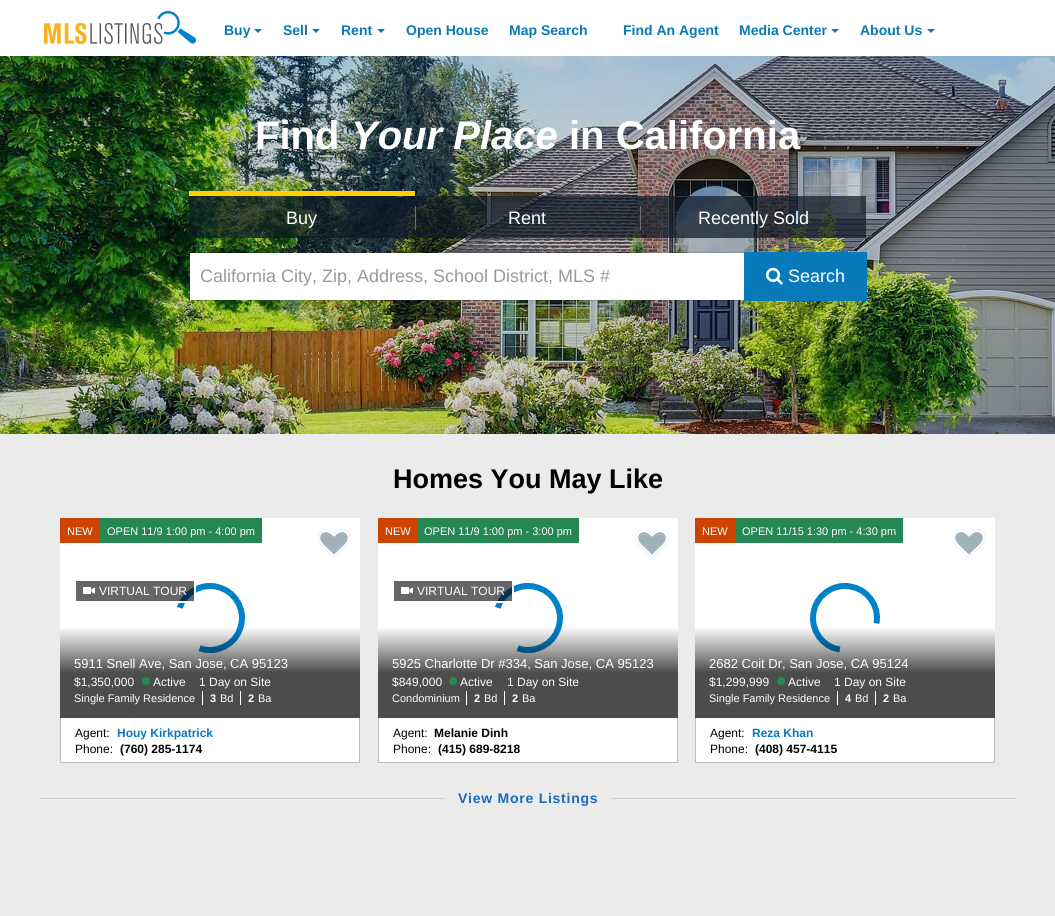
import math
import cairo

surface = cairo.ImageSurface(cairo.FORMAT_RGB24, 1055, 916)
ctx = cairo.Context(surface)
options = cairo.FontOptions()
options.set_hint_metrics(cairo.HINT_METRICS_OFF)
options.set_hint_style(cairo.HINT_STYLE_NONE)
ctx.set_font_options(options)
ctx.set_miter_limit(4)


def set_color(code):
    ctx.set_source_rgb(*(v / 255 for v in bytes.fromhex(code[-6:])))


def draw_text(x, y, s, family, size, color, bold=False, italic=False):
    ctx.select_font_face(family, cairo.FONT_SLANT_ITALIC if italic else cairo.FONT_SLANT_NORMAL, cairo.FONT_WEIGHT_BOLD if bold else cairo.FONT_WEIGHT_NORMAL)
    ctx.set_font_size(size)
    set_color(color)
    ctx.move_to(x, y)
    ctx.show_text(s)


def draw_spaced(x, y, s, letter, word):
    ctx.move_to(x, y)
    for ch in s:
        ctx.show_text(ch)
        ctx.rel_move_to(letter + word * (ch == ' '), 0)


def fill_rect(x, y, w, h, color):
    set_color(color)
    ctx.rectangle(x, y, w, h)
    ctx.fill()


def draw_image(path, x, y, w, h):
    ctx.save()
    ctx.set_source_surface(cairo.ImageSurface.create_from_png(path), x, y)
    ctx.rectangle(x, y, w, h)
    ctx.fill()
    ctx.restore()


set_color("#ffffff")
ctx.paint()
draw_image("assets/img1.png", 44, 11, 152, 33)
draw_text(224, 35, "Buy", "Liberation Sans", 14, "#087aba", bold=True)
ctx.new_path()
ctx.move_to(254, 29)
ctx.line_to(262, 29)
ctx.line_to(258, 33)
ctx.close_path()
ctx.fill()
draw_text(283, 35, "Sell", "Liberation Sans", 14, "#087aba", bold=True)
ctx.new_path()
ctx.move_to(312, 29)
ctx.line_to(320, 29)
ctx.line_to(316, 33)
ctx.close_path()
ctx.fill()
draw_text(341, 35, "Rent", "Liberation Sans", 14, "#087aba", bold=True)
ctx.new_path()
ctx.move_to(377, 29)
ctx.line_to(385, 29)
ctx.line_to(381, 33)
ctx.close_path()
ctx.fill()
draw_text(406, 35, "Open House", "Liberation Sans", 14, "#087aba", bold=True)
draw_text(509, 35, "Map Search", "Liberation Sans", 14, "#087aba", bold=True)
draw_text(623, 35, "Find An Agent", "Liberation Sans", 14, "#087aba", bold=True)
draw_text(739, 35, "Media Center", "Liberation Sans", 14, "#087aba", bold=True)
ctx.new_path()
ctx.move_to(831, 29)
ctx.line_to(839, 29)
ctx.line_to(835, 33)
ctx.close_path()
ctx.fill()
draw_text(860, 35, "About Us", "Liberation Sans", 14, "#087aba", bold=True)
ctx.new_path()
ctx.move_to(927, 29)
ctx.line_to(935, 29)
ctx.line_to(931, 33)
ctx.close_path()
ctx.fill()
draw_image("assets/img2.png", 0, 56, 1055, 378)
draw_text(255, 149, "Find", "Liberation Sans", 40, "#ffffff", bold=True)
draw_text(351, 149, "Your Place", "Liberation Sans", 40, "#ffffff", bold=True, italic=True)
draw_text(569, 149, "in California", "Liberation Sans", 40, "#ffffff", bold=True)
ctx.set_source_rgba(0.047, 0.09, 0.149, 0.7)
ctx.rectangle(189, 196, 226, 42)
ctx.fill()
fill_rect(189, 191, 226, 5, "#ffcf01")
draw_text(286, 224, "Buy", "Liberation Sans", 18, "#ffffff")
ctx.set_source_rgba(0.047, 0.09, 0.149, 0.7)
ctx.rectangle(415, 196, 225, 42)
ctx.fill()
fill_rect(415, 206, 1, 24, "#707070")
draw_text(508, 224, "Rent", "Liberation Sans", 18, "#ffffff")
ctx.set_source_rgba(0.047, 0.09, 0.149, 0.7)
ctx.rectangle(640, 196, 226, 42)
ctx.fill()
fill_rect(640, 206, 1, 24, "#707070")
draw_text(698, 224, "Recently Sold", "Liberation Sans", 18, "#ffffff")
fill_rect(190, 253, 554, 47, "#ffffff")
ctx.rectangle(189.5, 252.5, 555, 48)
ctx.set_source_rgba(0, 0, 0, 0.15)
ctx.set_line_width(1)
ctx.stroke()
draw_text(200, 282, "California City, Zip, Address, School District, MLS #", "Liberation Sans", 18, "#999999")
fill_rect(744, 252, 123, 49, "#087aba")
draw_image("assets/img3.png", 766, 267, 17, 18)
draw_text(788, 282, "Search", "Liberation Sans", 18, "#ffffff")
fill_rect(0, 434, 1055, 482, "#ebebeb")
draw_text(393, 488, "Homes You May Like", "Liberation Sans", 27, "#000000", bold=True)
fill_rect(60, 518, 300, 244, "#ffffff")
fill_rect(60, 518, 40, 25, "#cc4400")
draw_text(67, 535, "NEW", "Liberation Sans", 11, "#ffffff")
fill_rect(100, 518, 162, 25, "#258752")
draw_text(107, 535, "OPEN 11/9 1:00 pm - 4:00 pm", "Liberation Sans", 11, "#ffffff")
draw_image("assets/img4.png", 177, 583, 68, 70)
ctx.set_source_rgba(0, 0, 0, 0.6)
ctx.rectangle(75, 580, 120, 22)
ctx.fill_preserve()
set_color("#ffffff")
ctx.set_line_width(2)
ctx.stroke()
draw_image("assets/img5.png", 83, 587, 12, 7)
draw_text(99, 595, "VIRTUAL TOUR", "Liberation Sans", 12, "#ffffff")
gradient = cairo.LinearGradient(210, 613, 210, 718)
gradient.add_color_stop_rgba(0.13, 0, 0, 0, 0)
gradient.add_color_stop_rgba(0.57, 0, 0, 0, 0.7)
ctx.set_source(gradient)
ctx.rectangle(60, 628, 300, 90)
ctx.fill()
draw_text(74, 668, "5911 Snell Ave, San Jose, CA 95123", "Liberation Sans", 13, "#ffffff")
draw_text(74, 686, "$1,350,000", "Liberation Sans", 12, "#ffffff")
set_color("#258752")
ctx.new_path()
ctx.arc(146, 681, 4, 0, 2 * math.pi)
ctx.fill()
draw_text(153, 686, "Active", "Liberation Sans", 12, "#ffffff")
draw_text(199, 686, "1 Day on Site", "Liberation Sans", 12, "#ffffff")
fill_rect(202, 691, 1, 14, "#ffffff")
draw_text(74, 702, "Single Family Residence", "Liberation Sans", 11, "#ffffff")
fill_rect(240, 691, 1, 14, "#ffffff")
draw_text(210, 702, "3", "Liberation Sans", 11, "#ffffff", bold=True)
draw_text(220, 702, "Bd", "Liberation Sans", 11, "#ffffff")
draw_text(248, 702, "2", "Liberation Sans", 11, "#ffffff", bold=True)
draw_text(258, 702, "Ba", "Liberation Sans", 11, "#ffffff")
fill_rect(359, 718, 1, 45, "#bebebe")
fill_rect(60, 762, 300, 1, "#bebebe")
fill_rect(60, 718, 1, 45, "#bebebe")
draw_image("assets/img6.png", 318, 529, 32, 29)
draw_image("assets/img7.png", 318, 530, 32, 27)
draw_text(75, 737, "Agent:", "Liberation Sans", 12, "#000000")
draw_text(117, 737, "Houy Kirkpatrick", "Liberation Sans", 12, "#087aba", bold=True)
draw_text(75, 753, "Phone:", "Liberation Sans", 12, "#000000")
draw_text(120, 753, "(760) 285-1174", "Liberation Sans", 12, "#000000", bold=True)
fill_rect(378, 518, 300, 244, "#ffffff")
fill_rect(378, 518, 39, 25, "#cc4400")
draw_text(385, 535, "NEW", "Liberation Sans", 11, "#ffffff")
fill_rect(417, 518, 162, 25, "#258752")
draw_text(424, 535, "OPEN 11/9 1:00 pm - 3:00 pm", "Liberation Sans", 11, "#ffffff")
draw_image("assets/img4.png", 495, 583, 68, 70)
ctx.set_source_rgba(0, 0, 0, 0.6)
ctx.rectangle(393, 580, 120, 22)
ctx.fill_preserve()
set_color("#ffffff")
ctx.stroke()
draw_image("assets/img5.png", 401, 587, 12, 7)
draw_text(417, 595, "VIRTUAL TOUR", "Liberation Sans", 12, "#ffffff")
gradient = cairo.LinearGradient(528, 613, 528, 718)
gradient.add_color_stop_rgba(0.13, 0, 0, 0, 0)
gradient.add_color_stop_rgba(0.57, 0, 0, 0, 0.7)
ctx.set_source(gradient)
ctx.rectangle(378, 628, 300, 90)
ctx.fill()
draw_text(392, 668, "5925 Charlotte Dr #334, San Jose, CA 95123", "Liberation Sans", 13, "#ffffff")
draw_text(392, 686, "$849,000", "Liberation Sans", 12, "#ffffff")
set_color("#258752")
ctx.new_path()
ctx.arc(453, 681, 4, 0, 2 * math.pi)
ctx.fill()
draw_text(460, 686, "Active", "Liberation Sans", 12, "#ffffff")
draw_text(507, 686, "1 Day on Site", "Liberation Sans", 12, "#ffffff")
fill_rect(466, 691, 1, 14, "#ffffff")
draw_text(392, 702, "Condominium", "Liberation Sans", 11, "#ffffff")
fill_rect(504, 691, 1, 14, "#ffffff")
draw_text(474, 702, "2", "Liberation Sans", 11, "#ffffff", bold=True)
draw_text(484, 702, "Bd", "Liberation Sans", 11, "#ffffff")
draw_text(512, 702, "2", "Liberation Sans", 11, "#ffffff", bold=True)
draw_text(522, 702, "Ba", "Liberation Sans", 11, "#ffffff")
fill_rect(677, 718, 1, 45, "#bebebe")
fill_rect(378, 762, 300, 1, "#bebebe")
fill_rect(378, 718, 1, 45, "#bebebe")
draw_image("assets/img6.png", 636, 529, 32, 29)
draw_image("assets/img7.png", 636, 530, 32, 27)
draw_text(393, 737, "Agent:", "Liberation Sans", 12, "#000000")
draw_text(434, 737, "Melanie Dinh", "Liberation Sans", 12, "#000000", bold=True)
draw_text(393, 753, "Phone:", "Liberation Sans", 12, "#000000")
draw_text(438, 753, "(415) 689-8218", "Liberation Sans", 12, "#000000", bold=True)
fill_rect(695, 518, 300, 244, "#ffffff")
fill_rect(695, 518, 40, 25, "#cc4400")
draw_text(702, 535, "NEW", "Liberation Sans", 11, "#ffffff")
fill_rect(735, 518, 168, 25, "#258752")
draw_text(742, 535, "OPEN 11/15 1:30 pm - 4:30 pm", "Liberation Sans", 11, "#ffffff")
draw_image("assets/img8.png", 810, 583, 70, 70)
gradient = cairo.LinearGradient(845, 613, 845, 718)
gradient.add_color_stop_rgba(0.13, 0, 0, 0, 0)
gradient.add_color_stop_rgba(0.57, 0, 0, 0, 0.7)
ctx.set_source(gradient)
ctx.rectangle(695, 628, 300, 90)
ctx.fill()
draw_text(709, 668, "2682 Coit Dr, San Jose, CA 95124", "Liberation Sans", 13, "#ffffff")
draw_text(709, 686, "$1,299,999", "Liberation Sans", 12, "#ffffff")
set_color("#258752")
ctx.new_path()
ctx.arc(781, 681, 4, 0, 2 * math.pi)
ctx.fill()
draw_text(788, 686, "Active", "Liberation Sans", 12, "#ffffff")
draw_text(834, 686, "1 Day on Site", "Liberation Sans", 12, "#ffffff")
fill_rect(837, 691, 1, 14, "#ffffff")
draw_text(709, 702, "Single Family Residence", "Liberation Sans", 11, "#ffffff")
fill_rect(875, 691, 1, 14, "#ffffff")
draw_text(845, 702, "4", "Liberation Sans", 11, "#ffffff", bold=True)
draw_text(855, 702, "Bd", "Liberation Sans", 11, "#ffffff")
draw_text(883, 702, "2", "Liberation Sans", 11, "#ffffff", bold=True)
draw_text(893, 702, "Ba", "Liberation Sans", 11, "#ffffff")
fill_rect(994, 718, 1, 45, "#bebebe")
fill_rect(695, 762, 300, 1, "#bebebe")
fill_rect(695, 718, 1, 45, "#bebebe")
draw_image("assets/img6.png", 953, 529, 32, 29)
draw_image("assets/img7.png", 953, 530, 32, 27)
draw_text(710, 737, "Agent:", "Liberation Sans", 12, "#000000")
draw_text(752, 737, "Reza Khan", "Liberation Sans", 12, "#087aba", bold=True)
draw_text(710, 753, "Phone:", "Liberation Sans", 12, "#000000")
draw_text(755, 753, "(408) 457-4115", "Liberation Sans", 12, "#000000", bold=True)
fill_rect(40, 798, 405, 1, "#cdcece")
ctx.set_font_size(14)
set_color("#166cbd")
draw_spaced(458, 803, "View More Listings", 0.75, 0)
fill_rect(611, 798, 405, 1, "#cdcece")
surface.write_to_png("output.png")
